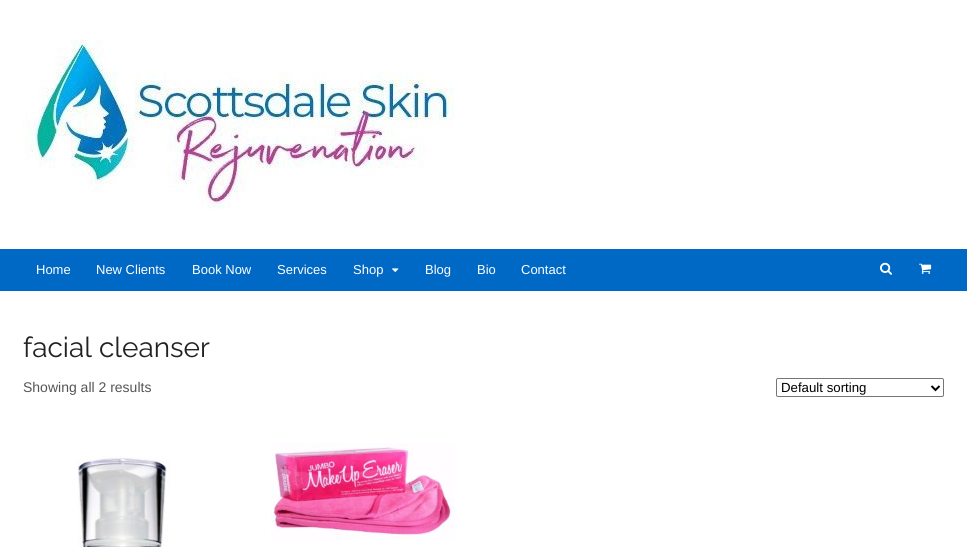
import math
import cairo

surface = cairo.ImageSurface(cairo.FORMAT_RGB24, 967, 547)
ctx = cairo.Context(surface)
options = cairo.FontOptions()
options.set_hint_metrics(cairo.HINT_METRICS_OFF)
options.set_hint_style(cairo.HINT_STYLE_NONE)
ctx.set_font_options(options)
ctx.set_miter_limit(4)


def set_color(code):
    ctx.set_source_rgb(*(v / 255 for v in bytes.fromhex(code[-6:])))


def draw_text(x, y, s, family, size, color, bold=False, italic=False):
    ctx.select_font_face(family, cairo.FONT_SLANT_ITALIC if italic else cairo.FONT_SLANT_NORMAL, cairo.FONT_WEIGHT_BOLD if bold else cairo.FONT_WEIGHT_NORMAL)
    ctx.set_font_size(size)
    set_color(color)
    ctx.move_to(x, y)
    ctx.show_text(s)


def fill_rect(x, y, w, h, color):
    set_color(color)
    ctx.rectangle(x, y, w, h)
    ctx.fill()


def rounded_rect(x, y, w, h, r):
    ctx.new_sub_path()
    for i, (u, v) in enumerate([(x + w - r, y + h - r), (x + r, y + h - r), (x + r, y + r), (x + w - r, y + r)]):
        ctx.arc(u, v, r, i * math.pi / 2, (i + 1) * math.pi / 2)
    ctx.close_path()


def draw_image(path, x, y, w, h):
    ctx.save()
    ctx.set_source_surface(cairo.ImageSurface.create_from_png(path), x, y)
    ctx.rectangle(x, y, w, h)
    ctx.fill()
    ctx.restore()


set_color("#ffffff")
ctx.paint()
draw_image("assets/img1.png", 23, 40, 432, 169)
fill_rect(0, 249, 967, 42, "#0068c5")
draw_text(36, 274, "Home", "Liberation Sans", 13, "#ffffff")
draw_text(96, 274, "New Clients", "Liberation Sans", 13, "#ffffff")
draw_text(192, 274, "Book Now", "Liberation Sans", 13, "#ffffff")
draw_text(277, 274, "Services", "Liberation Sans", 13, "#ffffff")
draw_text(353, 274, "Shop", "Liberation Sans", 13, "#ffffff")
draw_image("assets/img2.png", 392, 268, 7, 4)
draw_text(425, 274, "Blog", "Liberation Sans", 13, "#ffffff")
draw_text(477, 274, "Bio", "Liberation Sans", 13, "#ffffff")
draw_text(521, 274, "Contact", "Liberation Sans", 13, "#ffffff")
draw_image("assets/img3.png", 880, 262, 12, 13)
draw_image("assets/img4.png", 919, 263, 13, 11)
draw_text(23, 357, "facial cleanser", "Raleway", 28, "#222222")
draw_text(23, 392, "Showing all 2 results", "Liberation Sans", 14, "#555555")
rounded_rect(776.5, 378.5, 167, 18, 1.5)
set_color("#767676")
ctx.set_line_width(1)
ctx.stroke()
ctx.new_path()
ctx.move_to(931.5, 386)
ctx.line_to(935.5, 390)
ctx.line_to(939.5, 386)
set_color("#000000")
ctx.set_line_width(2)
ctx.stroke()
draw_text(781, 392, "Default sorting", "Liberation Sans", 13.25, "#000000")
draw_image("assets/img5.png", 77, 455, 94, 92)
draw_image("assets/img6.png", 271, 443, 184, 97)
surface.write_to_png("output.png")
